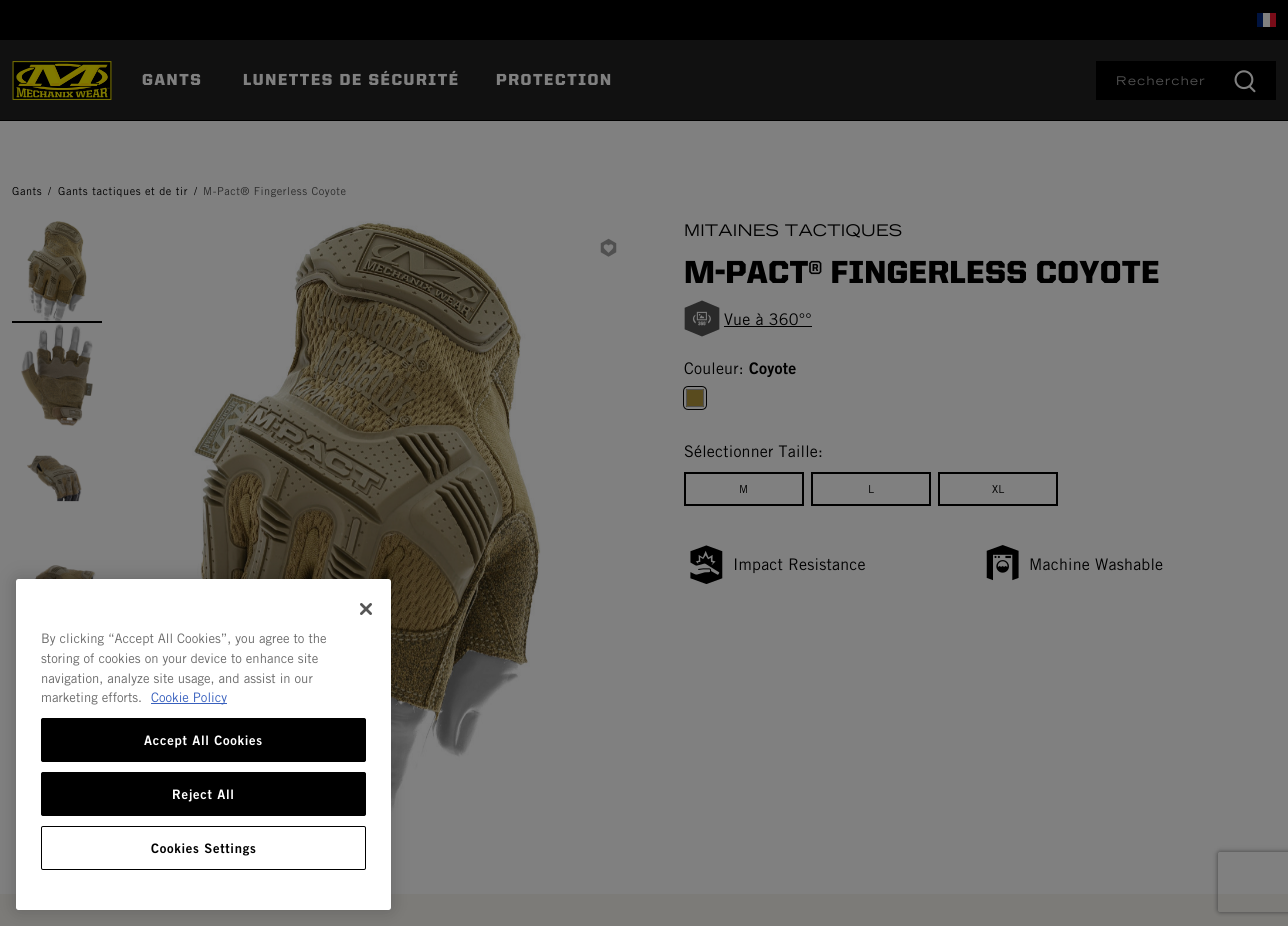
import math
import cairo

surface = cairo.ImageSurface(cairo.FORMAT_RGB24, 1288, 926)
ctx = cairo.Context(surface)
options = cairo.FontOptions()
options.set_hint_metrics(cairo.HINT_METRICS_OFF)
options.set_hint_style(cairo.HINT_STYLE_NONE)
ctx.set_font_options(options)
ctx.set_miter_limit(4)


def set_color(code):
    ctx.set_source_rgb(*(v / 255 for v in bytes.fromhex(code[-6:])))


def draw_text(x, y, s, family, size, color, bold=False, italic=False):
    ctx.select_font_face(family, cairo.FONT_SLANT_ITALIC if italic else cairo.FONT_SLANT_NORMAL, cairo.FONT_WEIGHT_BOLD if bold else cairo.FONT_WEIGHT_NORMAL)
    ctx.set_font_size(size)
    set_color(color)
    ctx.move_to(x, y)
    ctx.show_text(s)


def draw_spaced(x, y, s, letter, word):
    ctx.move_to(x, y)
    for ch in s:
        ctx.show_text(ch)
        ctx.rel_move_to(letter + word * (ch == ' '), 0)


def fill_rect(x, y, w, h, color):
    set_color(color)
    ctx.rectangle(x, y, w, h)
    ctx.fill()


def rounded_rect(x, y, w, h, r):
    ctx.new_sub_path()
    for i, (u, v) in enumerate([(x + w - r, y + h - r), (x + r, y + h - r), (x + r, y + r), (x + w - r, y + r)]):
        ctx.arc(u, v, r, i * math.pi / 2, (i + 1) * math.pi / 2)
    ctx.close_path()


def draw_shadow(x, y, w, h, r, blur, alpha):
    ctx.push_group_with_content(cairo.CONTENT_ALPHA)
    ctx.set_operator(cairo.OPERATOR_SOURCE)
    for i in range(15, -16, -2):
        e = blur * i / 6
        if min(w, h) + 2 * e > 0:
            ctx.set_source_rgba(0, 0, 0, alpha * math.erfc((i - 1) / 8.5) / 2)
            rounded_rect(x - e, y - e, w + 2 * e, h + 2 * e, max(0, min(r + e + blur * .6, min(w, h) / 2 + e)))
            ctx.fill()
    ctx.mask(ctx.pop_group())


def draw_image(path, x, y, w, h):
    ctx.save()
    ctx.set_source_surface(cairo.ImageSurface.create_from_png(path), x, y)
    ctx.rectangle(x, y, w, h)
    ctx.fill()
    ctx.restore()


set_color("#808080")
ctx.paint()
fill_rect(0, 0, 1288, 40, "#000000")
fill_rect(1263, 13, 7, 14, "#808080")
fill_rect(1257, 13, 6, 14, "#001340")
fill_rect(1270, 13, 6, 14, "#7a0c18")
fill_rect(0, 40, 1288, 80, "#111111")
fill_rect(0, 120, 1288, 1, "#000000")
draw_image("assets/img1.png", 12, 61, 100, 39)
ctx.select_font_face("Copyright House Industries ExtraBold")
ctx.set_font_size(16)
set_color("#808080")
draw_spaced(142, 85, "GANTS", 1.6, 0)
draw_spaced(243, 85, "LUNETTES DE SÉCURITÉ", 1.6, 0)
draw_spaced(496, 85, "PROTECTION", 1.6, 0)
fill_rect(1096, 61, 180, 39, "#000000")
ctx.select_font_face("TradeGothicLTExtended")
ctx.set_font_size(12)
set_color("#515151")
draw_spaced(1116, 85, "Rechercher", 1.25, 0)
draw_image("assets/img2.png", 1234, 70, 22, 23)
ctx.select_font_face("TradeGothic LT")
ctx.set_font_size(11)
set_color("#000000")
draw_spaced(12, 195, "Gants", 0.55, 0)
draw_spaced(48, 195, "/", 0.55, 0)
draw_spaced(58, 195, "Gants tactiques et de tir", 0.55, 0)
draw_spaced(194, 195, "/", 0.55, 0)
set_color("#2b2b2b")
draw_spaced(203, 195, "M-Pact® Fingerless Coyote", 0.55, 0)
draw_image("assets/img3.png", 27, 221, 60, 100)
fill_rect(12, 321, 90, 2, "#000000")
draw_image("assets/img4.png", 21, 324, 72, 102)
draw_image("assets/img5.png", 27, 455, 55, 47)
draw_image("assets/img6.png", 26, 565, 70, 14)
draw_image("assets/img7.png", 192, 221, 349, 596)
draw_image("assets/img8.png", 600, 238, 17, 19)
ctx.select_font_face("TradeGothicLTExtended")
ctx.set_font_size(16)
draw_spaced(684, 236, "MITAINES TACTIQUES", 0.2, 0)
ctx.select_font_face("Copyright House Industries ExtraBold")
ctx.set_font_size(32)
draw_spaced(684, 283, "M-PACT® FINGERLESS COYOTE", 0.3, 0)
draw_image("assets/img9.png", 684, 300, 36, 37)
ctx.select_font_face("TradeGothic LT")
ctx.set_font_size(16)
draw_spaced(724, 325, "Vue à 360°°", 0.2, 0)
fill_rect(724, 326, 88, 1, "#000000")
draw_spaced(684, 374, "Couleur:", 0.2, 0)
ctx.select_font_face("TradeGothic LT", cairo.FONT_SLANT_NORMAL, cairo.FONT_WEIGHT_BOLD)
draw_spaced(749, 374, "Coyote", 0.2, 0)
rounded_rect(684.5, 387.5, 21, 21, 3.5)
ctx.set_line_width(3)
ctx.stroke()
rounded_rect(685, 388, 20, 20, 3)
set_color("#808080")
ctx.set_line_width(2)
ctx.stroke()
fill_rect(686, 389, 18, 18, "#594b1e")
rounded_rect(686.5, 389.5, 17, 17, 1.5)
set_color("#515151")
ctx.set_line_width(1)
ctx.stroke()
ctx.select_font_face("TradeGothic LT")
set_color("#000000")
draw_spaced(684, 457, "Sélectionner Taille:", 0.2, 0)
ctx.rectangle(685, 473, 118, 32)
ctx.set_line_width(2)
ctx.stroke()
ctx.set_font_size(11)
draw_spaced(739, 493, "M", 0.2, 0)
ctx.rectangle(812, 473, 118, 32)
ctx.stroke()
draw_spaced(868, 493, "L", 0.2, 0)
ctx.rectangle(939, 473, 118, 32)
ctx.stroke()
draw_spaced(992, 493, "XL", 0.2, 0)
draw_image("assets/img10.png", 690, 545, 33, 39)
ctx.set_font_size(16)
draw_spaced(733, 570, "Impact Resistance", 0.2, 0)
draw_image("assets/img11.png", 986, 545, 33, 36)
draw_spaced(1029, 570, "Machine Washable", 0.2, 0)
fill_rect(0, 894, 1288, 32, "#7c7b78")
set_color("#000000")
draw_shadow(16, 579, 375, 331, 2.5, 9, 0.2)
set_color("#ffffff")
rounded_rect(16, 579, 375, 331, 2.5)
ctx.fill()
draw_image("assets/img12.png", 360, 603, 12, 12)
draw_text(41, 643, "By clicking “Accept All Cookies”, you agree to the", "TradeGothic LT", 13.1, "#696969")
draw_text(41, 663, "storing of cookies on your device to enhance site", "TradeGothic LT", 13.1, "#696969")
draw_text(41, 683, "navigation, analyze site usage, and assist in our", "TradeGothic LT", 13.1, "#696969")
draw_text(41, 702, "marketing efforts.", "TradeGothic LT", 13.1, "#696969")
fill_rect(151, 703, 76, 1, "#3860be")
draw_text(151, 702, "Cookie Policy", "TradeGothic LT", 13.1, "#3860be")
set_color("#000000")
rounded_rect(41.5, 718.5, 324, 43, 1.5)
ctx.fill_preserve()
ctx.set_line_width(1)
ctx.stroke()
ctx.select_font_face("TradeGothic LT", cairo.FONT_SLANT_NORMAL, cairo.FONT_WEIGHT_BOLD)
set_color("#ffffff")
draw_spaced(144, 745, "Accept All Cookies", 0.7, 0)
set_color("#000000")
rounded_rect(41.5, 772.5, 324, 43, 1.5)
ctx.fill_preserve()
ctx.stroke()
set_color("#ffffff")
draw_spaced(172, 799, "Reject All", 0.7, 0)
rounded_rect(41.5, 826.5, 324, 43, 1.5)
set_color("#000000")
ctx.stroke()
draw_spaced(151, 853, "Cookies Settings", 0.7, 0)
ctx.save()
ctx.set_fill_rule(cairo.FILL_RULE_EVEN_ODD)
ctx.new_path()
ctx.move_to(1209, 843)
ctx.line_to(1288, 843)
ctx.line_to(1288, 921)
ctx.line_to(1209, 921)
ctx.close_path()
ctx.move_to(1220, 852)
ctx.line_to(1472, 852)
ctx.curve_to(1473, 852, 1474, 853, 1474, 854)
ctx.line_to(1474, 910)
ctx.curve_to(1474, 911, 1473, 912, 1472, 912)
ctx.line_to(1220, 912)
ctx.curve_to(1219, 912, 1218, 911, 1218, 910)
ctx.line_to(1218, 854)
ctx.curve_to(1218, 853, 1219, 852, 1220, 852)
ctx.close_path()
ctx.clip()
set_color("#404040")
draw_shadow(1218, 852, 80, 60, 2, 2.5, 1)
ctx.restore()
surface.write_to_png("output.png")
